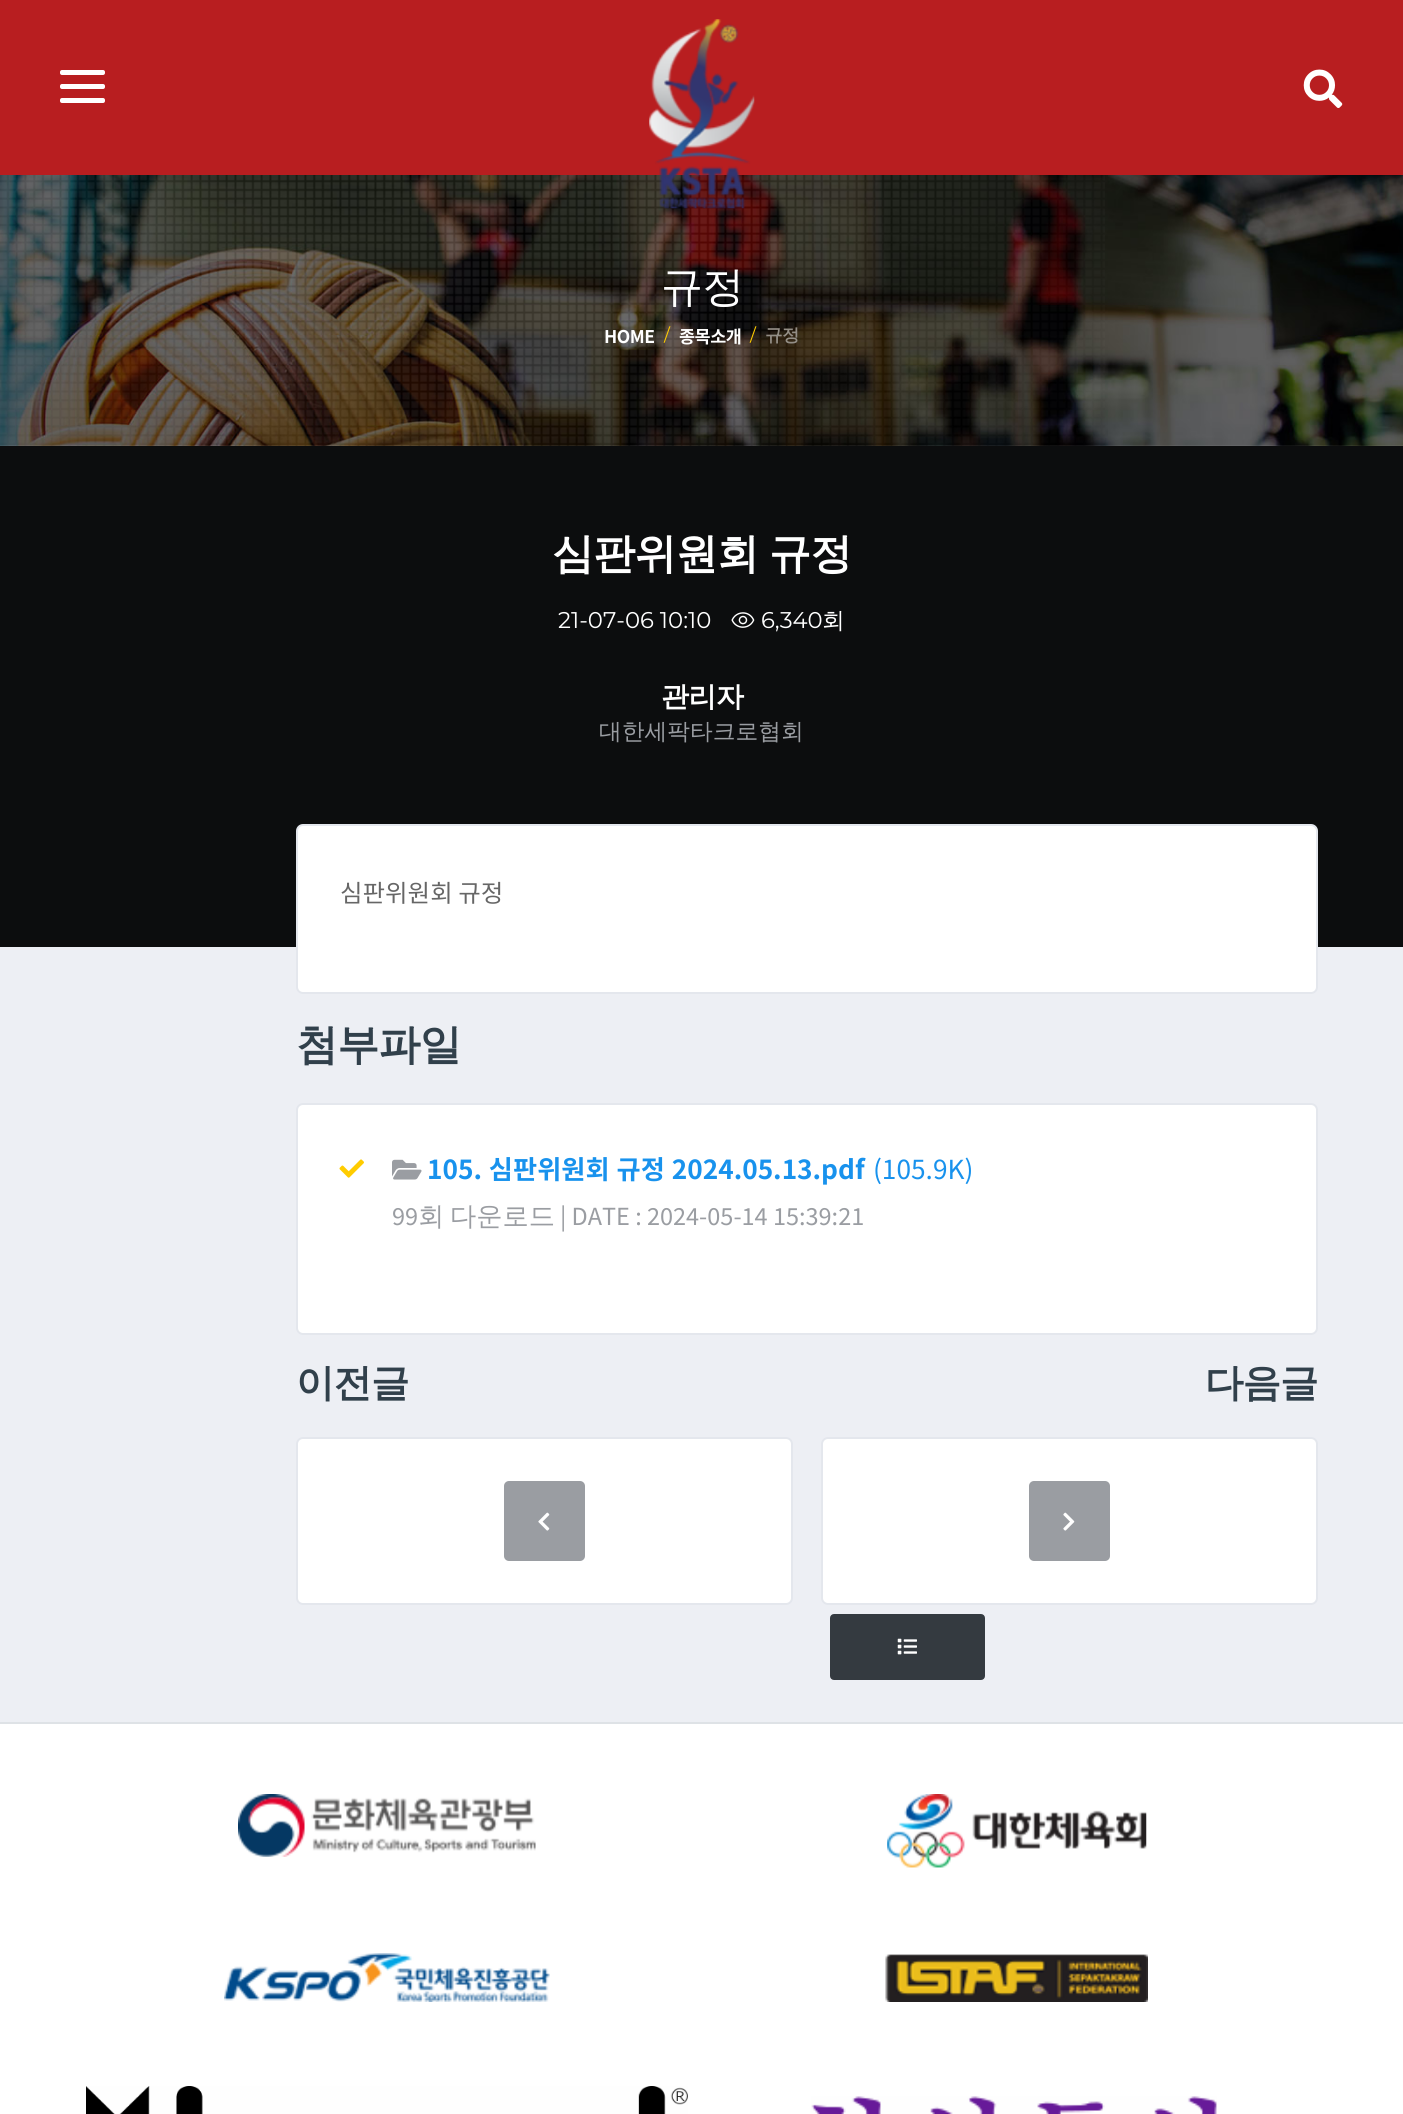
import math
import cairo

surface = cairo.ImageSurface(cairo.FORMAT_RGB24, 1403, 2114)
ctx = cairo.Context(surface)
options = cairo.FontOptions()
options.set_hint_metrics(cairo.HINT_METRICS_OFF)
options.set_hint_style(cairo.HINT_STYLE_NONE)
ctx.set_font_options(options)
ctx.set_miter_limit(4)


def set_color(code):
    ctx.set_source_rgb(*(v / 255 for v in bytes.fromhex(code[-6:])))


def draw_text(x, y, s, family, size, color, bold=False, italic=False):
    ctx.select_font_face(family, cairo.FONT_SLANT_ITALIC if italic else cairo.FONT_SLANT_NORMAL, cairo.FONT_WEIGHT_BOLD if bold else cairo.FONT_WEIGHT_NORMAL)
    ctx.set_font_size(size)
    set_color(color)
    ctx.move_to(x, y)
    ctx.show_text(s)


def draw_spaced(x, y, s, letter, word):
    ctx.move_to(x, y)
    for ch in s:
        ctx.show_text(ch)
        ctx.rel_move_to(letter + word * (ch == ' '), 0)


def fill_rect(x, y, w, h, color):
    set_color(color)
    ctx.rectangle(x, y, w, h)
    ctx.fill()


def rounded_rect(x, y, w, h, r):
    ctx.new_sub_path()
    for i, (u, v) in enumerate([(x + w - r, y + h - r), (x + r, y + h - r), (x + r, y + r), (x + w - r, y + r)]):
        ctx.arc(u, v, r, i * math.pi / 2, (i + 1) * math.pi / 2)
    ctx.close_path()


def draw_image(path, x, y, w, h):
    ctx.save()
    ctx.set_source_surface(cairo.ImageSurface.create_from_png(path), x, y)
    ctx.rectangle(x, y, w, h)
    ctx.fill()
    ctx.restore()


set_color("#edeff4")
ctx.paint()
fill_rect(0, 0, 1403, 175, "#b81e20")
set_color("#ffffff")
rounded_rect(60, 70, 45, 5, 2)
ctx.fill()
rounded_rect(60, 84, 45, 5, 2)
ctx.fill()
rounded_rect(60, 98, 45, 5, 2)
ctx.fill()
draw_image("assets/img1.png", 1303, 69, 40, 39)
draw_image("assets/img3.png", 0, 175, 1403, 271)
draw_image("assets/img4.png", 0, 175, 1105, 271)
draw_image("assets/img2.png", 649, 19, 106, 190)
ctx.select_font_face("WenQuanYi Zen Hei Medium")
ctx.set_font_size(42)
draw_spaced(661, 301, "규정", -0.75, 0)
ctx.select_font_face("Noto Sans KR", cairo.FONT_SLANT_NORMAL, cairo.FONT_WEIGHT_BOLD)
ctx.set_font_size(17.5)
draw_spaced(604, 343, "HOME", -0.5, 0)
ctx.select_font_face("Montserrat")
set_color("#ffcc00")
draw_spaced(664, 341, "/", -0.5, 0)
ctx.select_font_face("Noto Sans KR", cairo.FONT_SLANT_NORMAL, cairo.FONT_WEIGHT_BOLD)
set_color("#ffffff")
draw_spaced(679, 343, "종목소개", -0.5, 0)
ctx.select_font_face("Montserrat")
set_color("#ffcc00")
draw_spaced(750, 341, "/", -0.5, 0)
ctx.select_font_face("WenQuanYi Zen Hei", cairo.FONT_SLANT_NORMAL, cairo.FONT_WEIGHT_BOLD)
set_color("#938e86")
draw_spaced(765, 341, "규정", -0.5, 0)
fill_rect(0, 446, 1403, 501, "#0c0d0e")
ctx.set_font_size(42)
set_color("#ffffff")
draw_spaced(552, 568, "심판위원회 규정", -0.75, -1)
draw_text(558, 628, "21-07-06 10:10", "Montserrat", 22.75, "#ffffff")
draw_image("assets/img5.png", 731, 612, 24, 16)
draw_text(761, 628, "6,340", "Montserrat", 22.75, "#ffffff")
draw_text(822, 628, "회", "WenQuanYi Zen Hei Medium", 22.75, "#ffffff")
ctx.select_font_face("WenQuanYi Zen Hei", cairo.FONT_SLANT_NORMAL, cairo.FONT_WEIGHT_BOLD)
ctx.set_font_size(28)
draw_spaced(661, 706, "관리자", -0.5, 0)
draw_text(599, 739, "대한세팍타크로협회", "WenQuanYi Zen Hei Medium", 22.75, "#9a9da2")
set_color("#ffffff")
rounded_rect(297, 825, 1020, 168, 6)
ctx.fill_preserve()
set_color("#e4e7ed")
ctx.stroke()
draw_text(340, 902, "심판위원회 규정", "Noto Sans KR", 24.5, "#666666")
ctx.select_font_face("WenQuanYi Zen Hei", cairo.FONT_SLANT_NORMAL, cairo.FONT_WEIGHT_BOLD)
ctx.set_font_size(42)
set_color("#31404b")
draw_spaced(296, 1059, "첨부파일", -0.75, 0)
set_color("#ffffff")
rounded_rect(297, 1104, 1020, 230, 6)
ctx.fill_preserve()
set_color("#e4e7ed")
ctx.stroke()
draw_image("assets/img6.png", 339, 1159, 25, 19)
draw_image("assets/img7.png", 392, 1159, 30, 21)
ctx.select_font_face("Noto Sans KR", cairo.FONT_SLANT_NORMAL, cairo.FONT_WEIGHT_BOLD)
ctx.set_font_size(26.25)
set_color("#1892ed")
draw_spaced(427, 1179, "105. 심판위원회 규정 2024.05.13.pdf", 0, 1)
draw_text(873, 1179, "(105.9K)", "Noto Sans KR", 26.25, "#1892ed")
draw_text(392, 1225, "99", "Source Sans Pro", 26.25, "#9a9da2")
draw_text(418, 1225, "회", "WenQuanYi Zen Hei Medium", 26.25, "#9a9da2")
draw_text(450, 1225, "다운로드", "WenQuanYi Zen Hei Medium", 26.25, "#9a9da2")
draw_text(560, 1225, "| DATE : 2024-05-14 15:39:21", "Source Sans Pro", 26.25, "#9a9da2")
ctx.select_font_face("WenQuanYi Zen Hei", cairo.FONT_SLANT_NORMAL, cairo.FONT_WEIGHT_BOLD)
ctx.set_font_size(38.5)
set_color("#31404b")
draw_spaced(296, 1396, "이전글", -1, 0)
set_color("#ffffff")
rounded_rect(297, 1438, 495, 166, 6)
ctx.fill_preserve()
set_color("#e4e7ed")
ctx.stroke()
set_color("#9a9da2")
rounded_rect(504, 1481, 81, 80, 5)
ctx.fill()
draw_image("assets/img8.png", 538, 1512, 12, 19)
set_color("#31404b")
draw_spaced(1205, 1396, "다음글", -1, 0)
set_color("#ffffff")
rounded_rect(822, 1438, 495, 166, 6)
ctx.fill_preserve()
set_color("#e4e7ed")
ctx.stroke()
set_color("#9a9da2")
rounded_rect(1029, 1481, 81, 80, 5)
ctx.fill()
draw_image("assets/img9.png", 1063, 1512, 12, 19)
set_color("#343a40")
rounded_rect(831, 1615, 153, 64, 3)
ctx.fill_preserve()
ctx.stroke()
draw_image("assets/img10.png", 897, 1638, 20, 17)
fill_rect(0, 1722, 1403, 2, "#dee2e6")
fill_rect(0, 1724, 1403, 390, "#ffffff")
draw_image("assets/img11.png", 238, 1794, 298, 63)
draw_image("assets/img12.png", 887, 1794, 260, 74)
draw_image("assets/img13.png", 224, 1953, 326, 49)
draw_image("assets/img14.png", 885, 1954, 263, 48)
draw_image("assets/img15.png", 86, 2086, 602, 28)
draw_image("assets/img16.png", 811, 2096, 406, 18)
surface.write_to_png("output.png")
